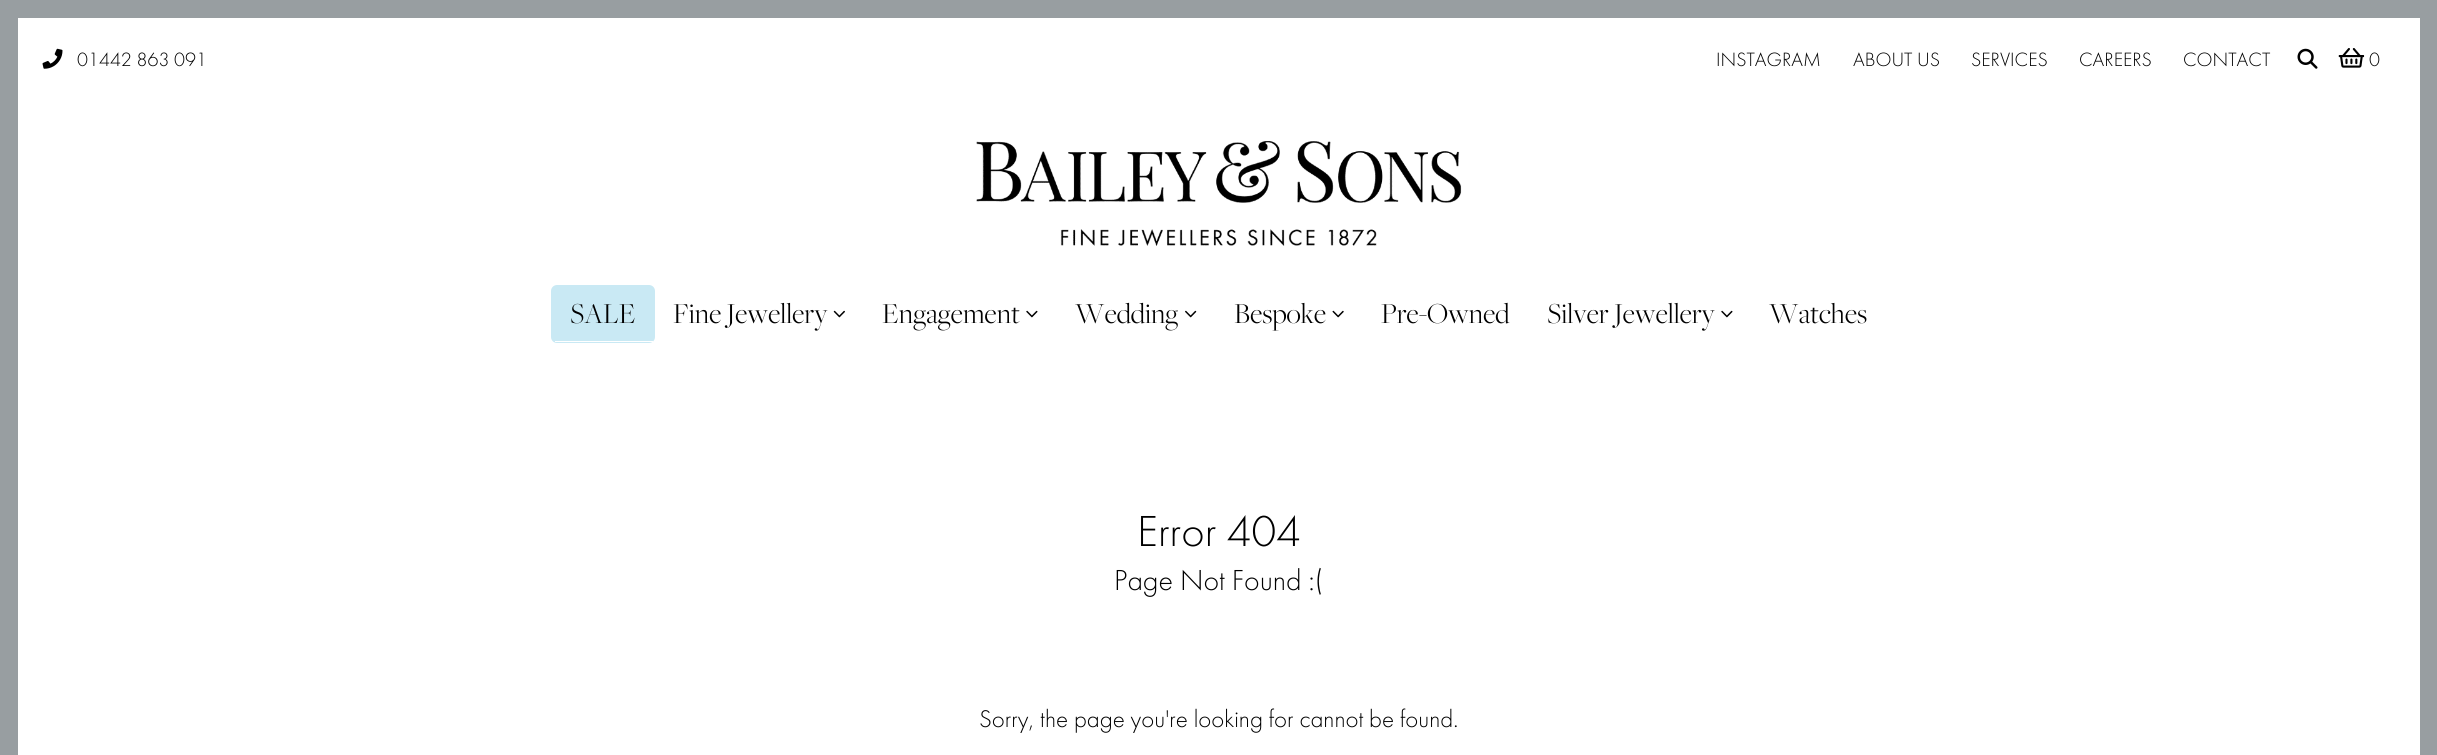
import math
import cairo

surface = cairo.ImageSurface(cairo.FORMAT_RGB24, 2437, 755)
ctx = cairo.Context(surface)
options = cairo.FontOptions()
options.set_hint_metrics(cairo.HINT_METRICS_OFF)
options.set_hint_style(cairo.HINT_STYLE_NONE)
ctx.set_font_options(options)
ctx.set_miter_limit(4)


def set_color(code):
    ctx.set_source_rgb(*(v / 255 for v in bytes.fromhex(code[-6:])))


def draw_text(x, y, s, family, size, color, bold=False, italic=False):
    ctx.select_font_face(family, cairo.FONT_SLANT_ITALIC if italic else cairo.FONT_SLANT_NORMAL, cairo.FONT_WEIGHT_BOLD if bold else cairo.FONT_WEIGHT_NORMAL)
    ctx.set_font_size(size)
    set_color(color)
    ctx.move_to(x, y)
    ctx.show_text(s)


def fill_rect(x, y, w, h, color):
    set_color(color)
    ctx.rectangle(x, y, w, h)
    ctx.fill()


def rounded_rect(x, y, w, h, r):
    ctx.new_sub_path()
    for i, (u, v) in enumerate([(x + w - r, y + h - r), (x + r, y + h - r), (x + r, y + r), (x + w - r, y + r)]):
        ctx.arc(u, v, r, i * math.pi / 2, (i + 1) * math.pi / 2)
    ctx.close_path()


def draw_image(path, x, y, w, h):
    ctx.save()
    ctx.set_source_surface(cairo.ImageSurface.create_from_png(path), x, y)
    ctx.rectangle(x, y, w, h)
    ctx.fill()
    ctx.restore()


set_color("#ffffff")
ctx.paint()
ctx.rectangle(9, 9, 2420, 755)
set_color("#989ea1")
ctx.set_line_width(18)
ctx.stroke()
draw_image("assets/img1.png", 42, 48, 21, 21)
draw_text(77, 66, "01442 863 091", "Futura PT Light", 20, "#000000")
draw_text(1716, 66, "INSTAGRAM", "Futura PT Light", 20, "#000000")
draw_text(1853, 66, "ABOUT US", "Futura PT Light", 20, "#000000")
draw_text(1971, 66, "SERVICES", "Futura PT Light", 20, "#000000")
draw_text(2079, 66, "CAREERS", "Futura PT Light", 20, "#000000")
draw_text(2183, 66, "CONTACT", "Futura PT Light", 20, "#000000")
draw_image("assets/img2.png", 2297, 48, 21, 21)
draw_image("assets/img3.png", 2338, 48, 27, 20)
draw_text(2369, 66, "0", "Futura PT Light", 20, "#000000")
draw_image("assets/img4.png", 976, 141, 486, 105)
set_color("#c9e9f4")
rounded_rect(551, 285, 104, 58, 6)
ctx.fill()
fill_rect(555, 341, 98, 1, "#ffffff")
draw_text(570, 323, "SALE", "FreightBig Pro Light", 30, "#000000")
draw_text(673, 323, "Fine Jewellery", "FreightBig Pro Light", 30, "#000000")
draw_image("assets/img5.png", 833, 310, 12, 8)
draw_text(882, 323, "Engagement", "FreightBig Pro Light", 30, "#000000")
draw_image("assets/img6.png", 1026, 310, 12, 8)
draw_text(1075, 323, "Wedding", "FreightBig Pro Light", 30, "#000000")
draw_image("assets/img7.png", 1185, 310, 12, 8)
draw_text(1234, 323, "Bespoke", "FreightBig Pro Light", 30, "#000000")
draw_image("assets/img8.png", 1332, 310, 12, 8)
draw_text(1381, 323, "Pre-Owned", "FreightBig Pro Light", 30, "#000000")
draw_text(1547, 323, "Silver Jewellery", "FreightBig Pro Light", 30, "#000000")
draw_image("assets/img6.png", 1721, 310, 12, 8)
draw_text(1769, 323, "Watches", "FreightBig Pro Light", 30, "#000000")
draw_text(1137, 546, "Error 404", "Futura PT Light", 45, "#000000")
draw_text(1114, 590, "Page Not Found :(", "Futura PT Light", 30, "#000000")
draw_text(979, 727, "Sorry, the page you're looking for cannot be found.", "Futura PT Light", 25, "#000000")
surface.write_to_png("output.png")
